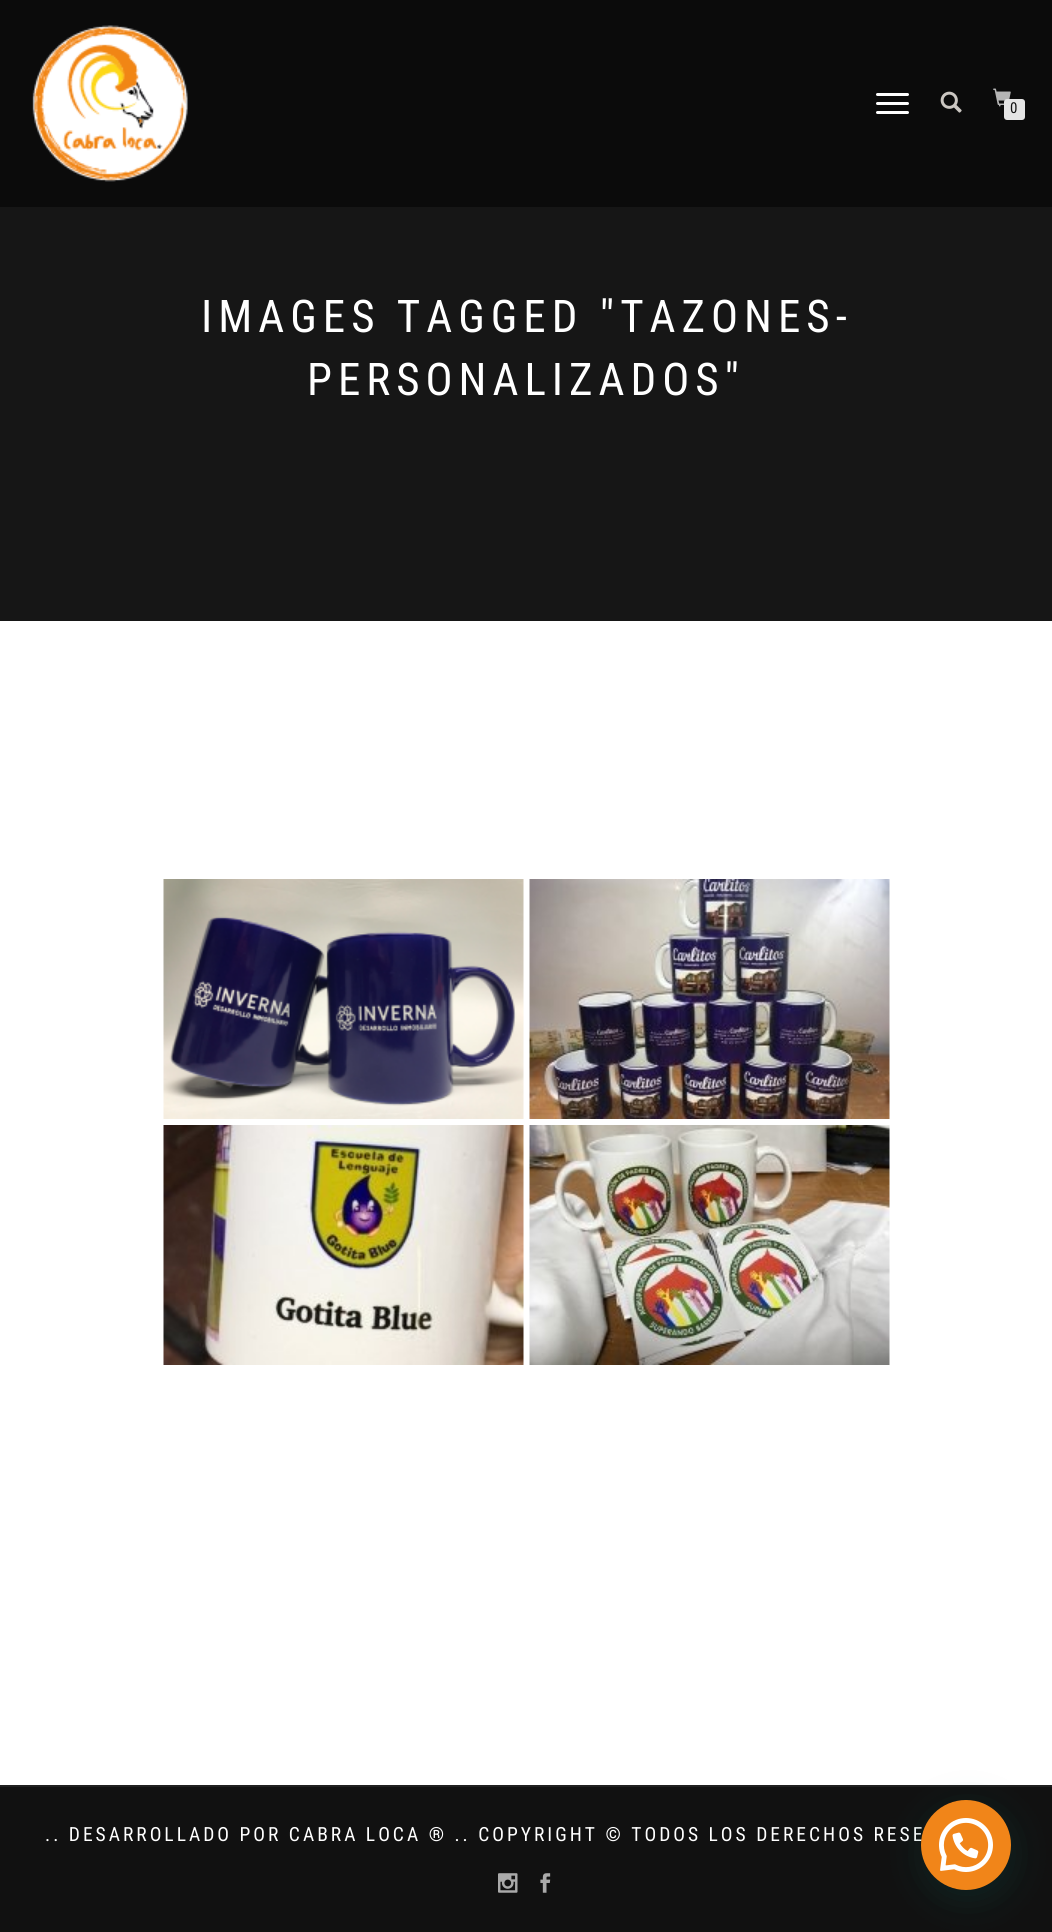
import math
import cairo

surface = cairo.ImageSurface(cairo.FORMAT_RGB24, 1052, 1932)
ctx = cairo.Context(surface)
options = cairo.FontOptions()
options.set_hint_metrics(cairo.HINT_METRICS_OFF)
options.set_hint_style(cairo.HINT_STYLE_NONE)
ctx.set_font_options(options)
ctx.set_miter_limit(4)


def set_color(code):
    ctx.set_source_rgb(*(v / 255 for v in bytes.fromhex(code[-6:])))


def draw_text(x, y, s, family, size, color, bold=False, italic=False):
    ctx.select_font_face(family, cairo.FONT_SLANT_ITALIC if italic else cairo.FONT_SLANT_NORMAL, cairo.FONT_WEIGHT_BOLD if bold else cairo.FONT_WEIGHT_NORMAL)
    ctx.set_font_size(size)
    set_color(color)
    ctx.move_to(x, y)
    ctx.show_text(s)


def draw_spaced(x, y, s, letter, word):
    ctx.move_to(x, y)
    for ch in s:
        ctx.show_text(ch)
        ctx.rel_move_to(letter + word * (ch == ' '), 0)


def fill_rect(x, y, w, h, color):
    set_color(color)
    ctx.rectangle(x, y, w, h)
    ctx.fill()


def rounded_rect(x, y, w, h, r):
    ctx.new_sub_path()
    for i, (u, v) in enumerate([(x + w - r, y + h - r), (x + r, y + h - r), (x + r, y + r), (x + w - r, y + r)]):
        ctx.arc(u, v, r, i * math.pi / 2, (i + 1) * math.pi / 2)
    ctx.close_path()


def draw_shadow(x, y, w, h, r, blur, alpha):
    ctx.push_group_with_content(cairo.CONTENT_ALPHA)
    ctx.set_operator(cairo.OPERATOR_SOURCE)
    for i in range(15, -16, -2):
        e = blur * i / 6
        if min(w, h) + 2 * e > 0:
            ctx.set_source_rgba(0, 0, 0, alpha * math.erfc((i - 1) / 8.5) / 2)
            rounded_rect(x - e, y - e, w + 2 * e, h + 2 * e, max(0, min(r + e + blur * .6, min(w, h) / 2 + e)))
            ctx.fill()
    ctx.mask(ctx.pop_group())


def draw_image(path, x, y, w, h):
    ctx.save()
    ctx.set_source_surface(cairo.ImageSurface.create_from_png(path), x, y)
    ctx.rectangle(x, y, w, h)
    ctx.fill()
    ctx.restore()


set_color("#ffffff")
ctx.paint()
fill_rect(0, 0, 1052, 207, "#0b0b0b")
draw_image("assets/img1.png", 32, 25, 156, 157)
set_color("#ffffff")
rounded_rect(876, 93, 33, 3, 1.5)
ctx.fill()
rounded_rect(876, 102, 33, 3, 1.5)
ctx.fill()
rounded_rect(876, 111, 33, 3, 1.5)
ctx.fill()
draw_image("assets/img2.png", 940, 91, 22, 22)
draw_image("assets/img3.png", 993, 88, 18, 19)
set_color("#e5e5e5")
rounded_rect(1004, 99, 21, 21, 3)
ctx.fill()
draw_text(1010, 113, "0", "Roboto Condensed", 15, "#111111")
fill_rect(0, 207, 1052, 414, "#161616")
ctx.set_font_size(45)
set_color("#ffffff")
draw_spaced(201, 332, "IMAGES TAGGED \"TAZONES-", 6, 0)
draw_spaced(307, 395, "PERSONALIZADOS\"", 6, 0)
draw_image("assets/img4.png", 163, 879, 361, 240)
draw_image("assets/img5.png", 529, 879, 361, 240)
draw_image("assets/img6.png", 163, 1125, 361, 240)
draw_image("assets/img7.png", 529, 1125, 361, 240)
fill_rect(0, 1787, 1052, 145, "#111111")
fill_rect(0, 1785, 1052, 2, "#202020")
ctx.set_font_size(19.5)
set_color("#ffffff")
draw_spaced(45, 1841, ".. DESARROLLADO POR CABRA LOCA ® .. COPYRIGHT © TODOS LOS DERECHOS RESE", 3, 0)
draw_image("assets/img8.png", 498, 1873, 20, 20)
draw_image("assets/img9.png", 540, 1873, 11, 20)
set_color("#075e54")
draw_shadow(923, 1809, 90, 90, 45, 18, 0.24)
set_color("#f18519")
ctx.arc(966, 1845, 45, 0, 2 * math.pi)
ctx.fill()
draw_image("assets/img10.png", 939, 1818, 54, 54)
surface.write_to_png("output.png")
